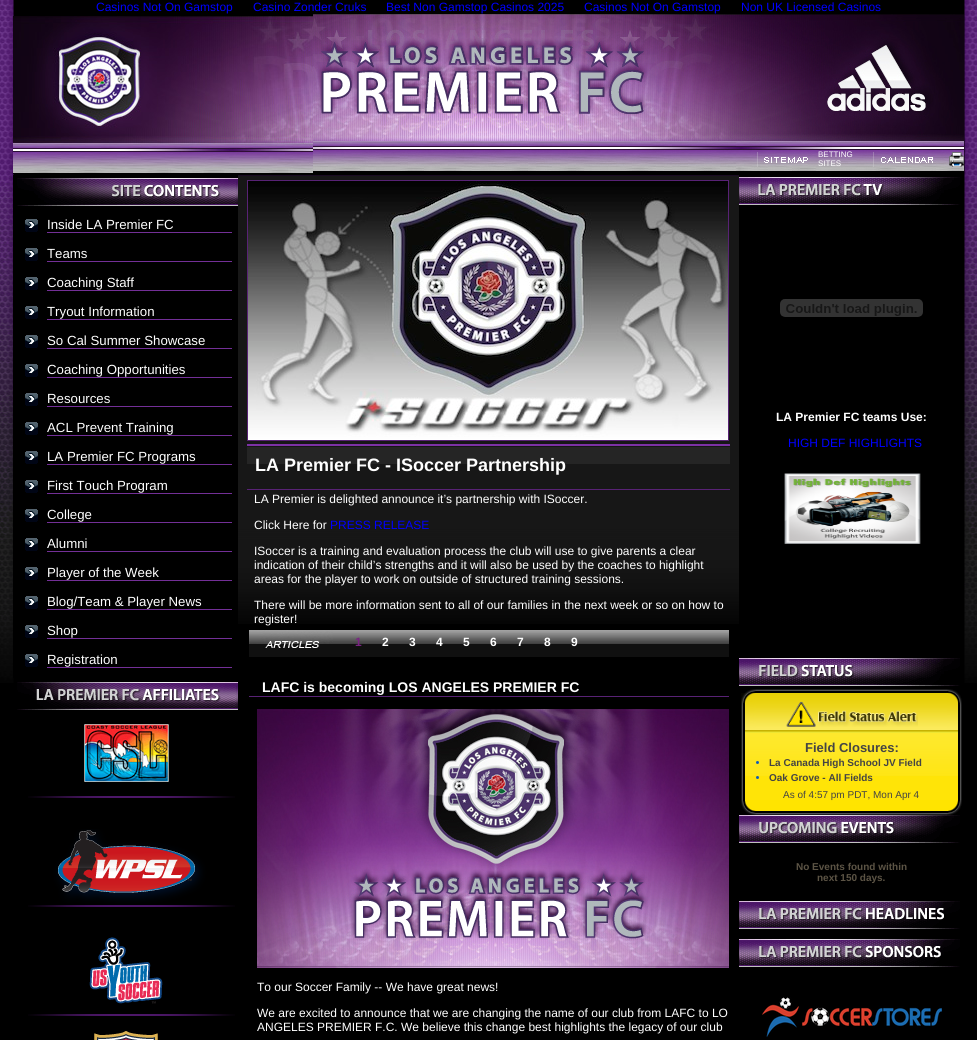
import math
import cairo

surface = cairo.ImageSurface(cairo.FORMAT_RGB24, 977, 1040)
ctx = cairo.Context(surface)
options = cairo.FontOptions()
options.set_hint_metrics(cairo.HINT_METRICS_OFF)
options.set_hint_style(cairo.HINT_STYLE_NONE)
ctx.set_font_options(options)
ctx.set_miter_limit(4)


def set_color(code):
    ctx.set_source_rgb(*(v / 255 for v in bytes.fromhex(code[-6:])))


def draw_text(x, y, s, family, size, color, bold=False, italic=False):
    ctx.select_font_face(family, cairo.FONT_SLANT_ITALIC if italic else cairo.FONT_SLANT_NORMAL, cairo.FONT_WEIGHT_BOLD if bold else cairo.FONT_WEIGHT_NORMAL)
    ctx.set_font_size(size)
    set_color(color)
    ctx.move_to(x, y)
    ctx.show_text(s)


def fill_rect(x, y, w, h, color):
    set_color(color)
    ctx.rectangle(x, y, w, h)
    ctx.fill()


def draw_image(path, x, y, w, h):
    ctx.save()
    ctx.set_source_surface(cairo.ImageSurface.create_from_png(path), x, y)
    ctx.rectangle(x, y, w, h)
    ctx.fill()
    ctx.restore()


set_color("#000000")
ctx.paint()
draw_image("assets/img1.png", 0, 0, 977, 683)
draw_text(96, 11, "Casinos Not On Gamstop", "Liberation Sans", 12, "#0000ff")
draw_text(253, 11, "Casino Zonder Cruks", "Liberation Sans", 12, "#0000ff")
draw_text(386, 11, "Best Non Gamstop Casinos 2025", "Liberation Sans", 12, "#0000ff")
draw_text(584, 11, "Casinos Not On Gamstop", "Liberation Sans", 12, "#0000ff")
draw_text(741, 11, "Non UK Licensed Casinos", "Liberation Sans", 12, "#0000ff")
draw_image("assets/img2.png", 13, 16, 300, 158)
draw_image("assets/img3.png", 313, 14, 651, 157)
draw_image("assets/img4.png", 757, 152, 51, 15)
draw_text(818, 157, "BETTING", "Liberation Sans", 8, "#ffffff")
draw_text(818, 166, "SITES", "Liberation Sans", 8, "#ffffff")
draw_image("assets/img5.png", 873, 152, 60, 15)
draw_image("assets/img6.png", 949, 152, 15, 15)
fill_rect(13, 175, 1, 503, "#000000")
draw_image("assets/img7.png", 17, 178, 221, 28)
draw_image("assets/img8.png", 25, 219, 13, 13)
fill_rect(47, 232, 185, 1, "#732f97")
draw_text(47, 229, "Inside LA Premier FC", "Liberation Sans", 13.25, "#ffffff")
draw_image("assets/img8.png", 25, 248, 13, 13)
fill_rect(47, 261, 185, 1, "#732f97")
draw_text(47, 258, "Teams", "Liberation Sans", 13.25, "#ffffff")
draw_image("assets/img8.png", 25, 277, 13, 13)
fill_rect(47, 290, 185, 1, "#732f97")
draw_text(47, 287, "Coaching Staff", "Liberation Sans", 13.25, "#ffffff")
draw_image("assets/img8.png", 25, 306, 13, 13)
fill_rect(47, 319, 185, 1, "#732f97")
draw_text(47, 316, "Tryout Information", "Liberation Sans", 13.25, "#ffffff")
draw_image("assets/img8.png", 25, 335, 13, 13)
fill_rect(47, 348, 185, 1, "#732f97")
draw_text(47, 345, "So Cal Summer Showcase", "Liberation Sans", 13.25, "#ffffff")
draw_image("assets/img8.png", 25, 364, 13, 13)
fill_rect(47, 377, 185, 1, "#732f97")
draw_text(47, 374, "Coaching Opportunities", "Liberation Sans", 13.25, "#ffffff")
draw_image("assets/img8.png", 25, 393, 13, 13)
fill_rect(47, 406, 185, 1, "#732f97")
draw_text(47, 403, "Resources", "Liberation Sans", 13.25, "#ffffff")
draw_image("assets/img8.png", 25, 422, 13, 13)
fill_rect(47, 435, 185, 1, "#732f97")
draw_text(47, 432, "ACL Prevent Training", "Liberation Sans", 13.25, "#ffffff")
draw_image("assets/img8.png", 25, 451, 13, 13)
fill_rect(47, 464, 185, 1, "#732f97")
draw_text(47, 461, "LA Premier FC Programs", "Liberation Sans", 13.25, "#ffffff")
draw_image("assets/img8.png", 25, 480, 13, 13)
fill_rect(47, 493, 185, 1, "#732f97")
draw_text(47, 490, "First Touch Program", "Liberation Sans", 13.25, "#ffffff")
draw_image("assets/img8.png", 25, 509, 13, 13)
fill_rect(47, 522, 185, 1, "#732f97")
draw_text(47, 519, "College", "Liberation Sans", 13.25, "#ffffff")
draw_image("assets/img8.png", 25, 538, 13, 13)
fill_rect(47, 551, 185, 1, "#732f97")
draw_text(47, 548, "Alumni", "Liberation Sans", 13.25, "#ffffff")
draw_image("assets/img8.png", 25, 567, 13, 13)
fill_rect(47, 580, 185, 1, "#732f97")
draw_text(47, 577, "Player of the Week", "Liberation Sans", 13.25, "#ffffff")
draw_image("assets/img8.png", 25, 596, 13, 13)
fill_rect(47, 609, 185, 1, "#732f97")
draw_text(47, 606, "Blog/Team & Player News", "Liberation Sans", 13.25, "#ffffff")
draw_image("assets/img8.png", 25, 625, 13, 13)
fill_rect(47, 638, 185, 1, "#732f97")
draw_text(47, 635, "Shop", "Liberation Sans", 13.25, "#ffffff")
draw_image("assets/img8.png", 25, 654, 13, 13)
fill_rect(47, 667, 185, 1, "#732f97")
draw_text(47, 664, "Registration", "Liberation Sans", 13.25, "#ffffff")
draw_image("assets/img9.png", 17, 682, 221, 28)
draw_image("assets/img10.png", 28, 724, 207, 74)
draw_image("assets/img11.png", 28, 829, 207, 78)
draw_image("assets/img12.png", 28, 937, 207, 79)
draw_image("assets/img13.png", 94, 1031, 64, 9)
draw_image("assets/img14.png", 238, 175, 501, 449)
draw_image("assets/img15.png", 248, 181, 480, 259)
ctx.rectangle(247.5, 180.5, 481, 260)
set_color("#582275")
ctx.set_line_width(1)
ctx.stroke()
draw_image("assets/img16.png", 247, 444, 483, 20)
draw_text(255, 471, "LA Premier FC - ISoccer Partnership", "Liberation Sans", 18, "#ffffff", bold=True)
fill_rect(247, 489, 483, 1, "#582275")
draw_text(254, 503, "LA Premier is delighted announce it’s partnership with ISoccer.", "Liberation Sans", 12, "#ffffff")
draw_text(254, 529, "Click Here for", "Liberation Sans", 12, "#ffffff")
draw_text(330, 529, "PRESS RELEASE", "Liberation Sans", 12, "#0000ff")
draw_text(254, 555, "ISoccer is a training and evaluation process the club will use to give parents a clear", "Liberation Sans", 12, "#ffffff")
draw_text(254, 569, "indication of their child’s strengths and it will also be used by the coaches to highlight", "Liberation Sans", 12, "#ffffff")
draw_text(254, 583, "areas for the player to work on outside of structured training sessions.", "Liberation Sans", 12, "#ffffff")
draw_text(254, 609, "There will be more information sent to all of our families in the next week or so on how to", "Liberation Sans", 12, "#ffffff")
draw_text(254, 623, "register!", "Liberation Sans", 12, "#ffffff")
draw_image("assets/img17.png", 249, 630, 92, 27)
draw_image("assets/img18.png", 341, 630, 388, 27)
draw_text(355, 646, "1", "Liberation Sans", 12, "#792382", bold=True)
draw_text(382, 646, "2", "Liberation Sans", 12, "#ffffff", bold=True)
draw_text(409, 646, "3", "Liberation Sans", 12, "#ffffff", bold=True)
draw_text(436, 646, "4", "Liberation Sans", 12, "#ffffff", bold=True)
draw_text(463, 646, "5", "Liberation Sans", 12, "#ffffff", bold=True)
draw_text(490, 646, "6", "Liberation Sans", 12, "#ffffff", bold=True)
draw_text(517, 646, "7", "Liberation Sans", 12, "#ffffff", bold=True)
draw_text(544, 646, "8", "Liberation Sans", 12, "#ffffff", bold=True)
draw_text(571, 646, "9", "Liberation Sans", 12, "#ffffff", bold=True)
draw_text(262, 692, "LAFC is becoming LOS ANGELES PREMIER FC", "Liberation Sans", 14, "#ffffff", bold=True)
fill_rect(249, 696, 480, 1, "#582275")
draw_image("assets/img19.png", 257, 709, 472, 259)
draw_text(257, 991, "To our Soccer Family -- We have great news!", "Liberation Sans", 12, "#ffffff")
draw_text(257, 1017, "We are excited to announce that we are changing the name of our club from LAFC to LO", "Liberation Sans", 12, "#ffffff")
draw_text(257, 1031, "ANGELES PREMIER F.C. We believe this change best highlights the legacy of our club", "Liberation Sans", 12, "#ffffff")
draw_image("assets/img20.png", 739, 177, 221, 28)
draw_image("assets/img21.png", 780, 299, 143, 18)
draw_text(776, 421, "LA Premier FC teams Use:", "Liberation Sans", 12, "#ffffff", bold=True)
draw_text(788, 447, "HIGH DEF HIGHLIGHTS", "Liberation Sans", 12, "#0000ff")
draw_image("assets/img22.png", 784, 473, 137, 71)
draw_image("assets/img23.png", 739, 658, 221, 28)
draw_image("assets/img24.png", 741, 689, 15, 43)
draw_image("assets/img25.png", 756, 689, 191, 43)
draw_image("assets/img26.png", 786, 701, 132, 26)
draw_image("assets/img27.png", 947, 689, 15, 43)
draw_image("assets/img28.png", 741, 732, 2, 68)
fill_rect(745, 776, 213, 24, "#ffe407")
draw_image("assets/img29.png", 745, 732, 213, 44)
draw_text(805, 752, "Field Closures:", "Liberation Sans", 13, "#444444", bold=True)
set_color("#125cb8")
ctx.new_path()
ctx.arc(757.5, 762.5, 1.5, 0, 2 * math.pi)
ctx.fill()
draw_text(769, 766, "La Canada High School JV Field", "Liberation Sans", 10, "#444444", bold=True)
set_color("#125cb8")
ctx.new_path()
ctx.arc(757.5, 777.5, 1.5, 0, 2 * math.pi)
ctx.fill()
draw_text(769, 781, "Oak Grove - All Fields", "Liberation Sans", 10, "#444444", bold=True)
draw_image("assets/img32.png", 756, 800, 191, 15)
draw_text(783, 798, "As of 4:57 pm PDT, Mon Apr 4", "Liberation Sans", 10, "#444444")
draw_image("assets/img30.png", 960, 732, 2, 68)
draw_image("assets/img31.png", 741, 800, 15, 15)
draw_image("assets/img33.png", 947, 800, 15, 15)
draw_image("assets/img34.png", 739, 815, 221, 28)
draw_text(796, 870, "No Events found within", "Liberation Sans", 10, "#5c5445", bold=True)
draw_text(817, 881, "next 150 days.", "Liberation Sans", 10, "#5c5445", bold=True)
draw_image("assets/img35.png", 739, 901, 221, 28)
draw_image("assets/img36.png", 739, 939, 221, 28)
draw_image("assets/img37.png", 762, 997, 180, 40)
surface.write_to_png("output.png")
